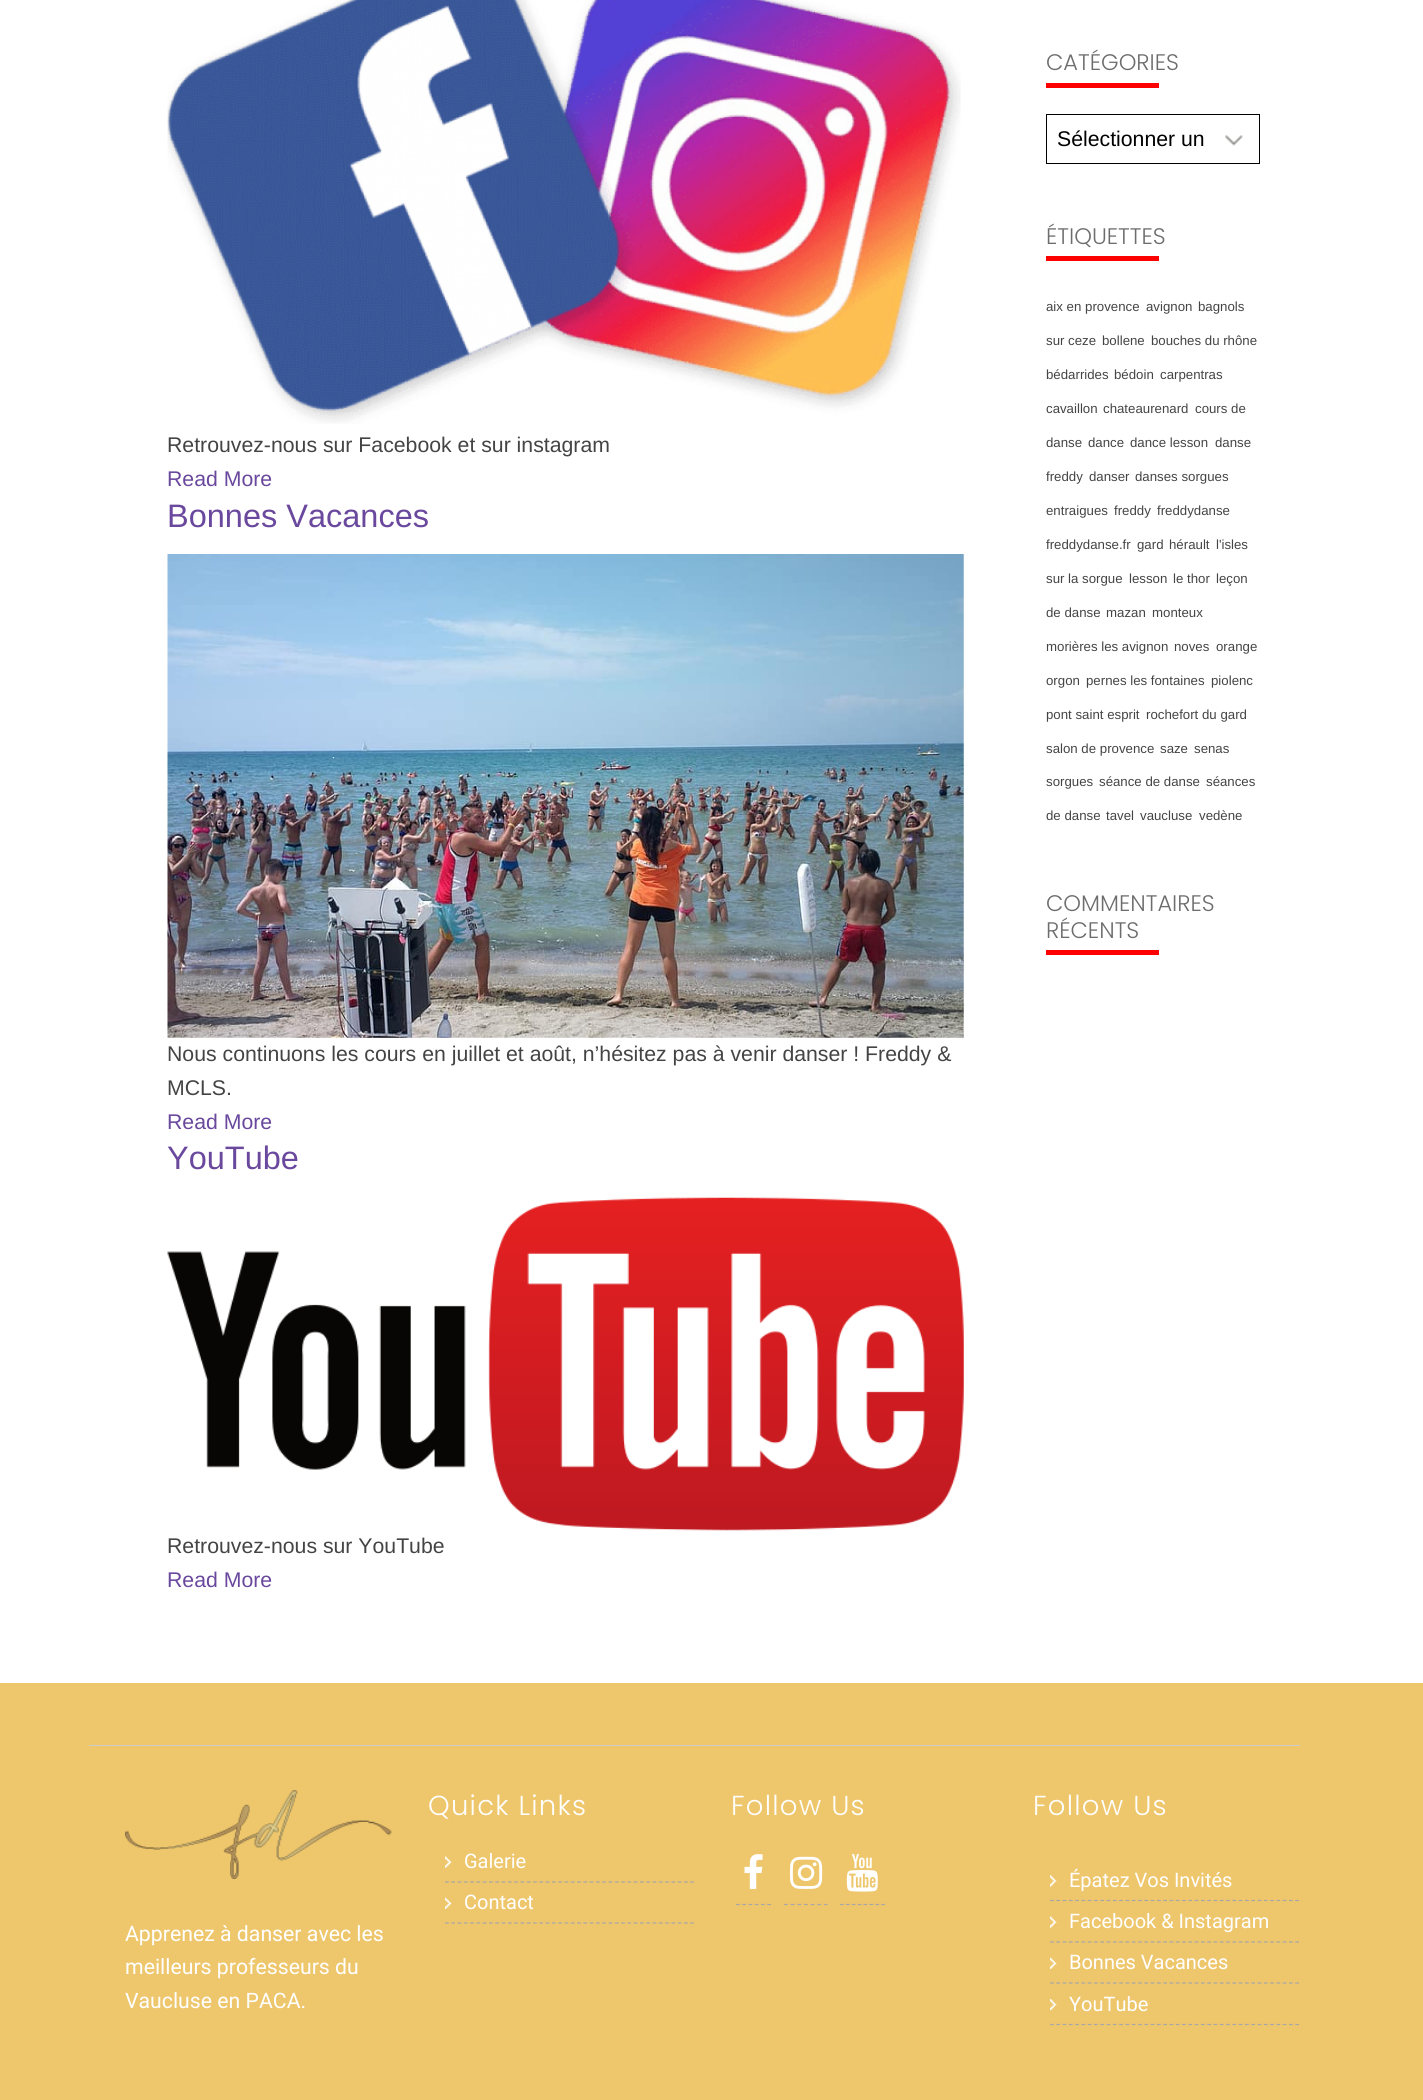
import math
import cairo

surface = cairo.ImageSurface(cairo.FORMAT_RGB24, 1423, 2100)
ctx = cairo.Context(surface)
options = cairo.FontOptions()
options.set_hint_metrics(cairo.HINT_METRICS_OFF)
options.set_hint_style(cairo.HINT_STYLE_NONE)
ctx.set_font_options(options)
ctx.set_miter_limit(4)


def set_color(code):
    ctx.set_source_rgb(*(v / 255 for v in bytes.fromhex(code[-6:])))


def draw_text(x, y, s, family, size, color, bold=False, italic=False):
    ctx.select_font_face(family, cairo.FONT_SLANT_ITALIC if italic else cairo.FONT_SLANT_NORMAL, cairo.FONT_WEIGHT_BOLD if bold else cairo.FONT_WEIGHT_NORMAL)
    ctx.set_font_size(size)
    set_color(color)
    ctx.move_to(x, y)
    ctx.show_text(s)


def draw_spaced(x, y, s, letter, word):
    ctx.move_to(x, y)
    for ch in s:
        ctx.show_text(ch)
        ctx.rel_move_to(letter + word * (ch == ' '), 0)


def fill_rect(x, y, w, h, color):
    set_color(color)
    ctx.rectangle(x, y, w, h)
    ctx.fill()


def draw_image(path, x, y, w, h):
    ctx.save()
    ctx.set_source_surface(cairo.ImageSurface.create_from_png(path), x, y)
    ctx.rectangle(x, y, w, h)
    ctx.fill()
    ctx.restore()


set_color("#ffffff")
ctx.paint()
draw_image("assets/img1.png", 167, 0, 794, 424)
draw_text(167, 452, "Retrouvez-nous sur Facebook et sur instagram", "Liberation Sans", 21.25, "#444444")
draw_text(167, 486, "Read More", "Liberation Sans", 21.25, "#69489d")
draw_text(167, 527, "Bonnes Vacances", "Liberation Sans", 32.5, "#69489d")
draw_image("assets/img2.png", 167, 554, 797, 484)
draw_text(167, 1061, "Nous continuons les cours en juillet et août, n’hésitez pas à venir danser ! Freddy &", "Liberation Sans", 21.25, "#444444")
draw_text(167, 1095, "MCLS.", "Liberation Sans", 21.25, "#444444")
draw_text(167, 1129, "Read More", "Liberation Sans", 21.25, "#69489d")
draw_text(167, 1169, "YouTube", "Liberation Sans", 32.5, "#69489d")
draw_image("assets/img3.png", 167, 1197, 797, 334)
draw_text(167, 1553, "Retrouvez-nous sur YouTube", "Liberation Sans", 21.25, "#444444")
draw_text(167, 1587, "Read More", "Liberation Sans", 21.25, "#69489d")
draw_text(1046, 70, "CATÉGORIES", "Poppins Light", 22.5, "#6d6d6d")
fill_rect(1046, 83, 113, 5, "#ff0000")
draw_image("assets/img4.png", 1225, 135, 18, 11)
ctx.rectangle(1046.5, 114.5, 213, 49)
set_color("#000000")
ctx.set_line_width(1)
ctx.stroke()
draw_text(1057, 146, "Sélectionner un", "Liberation Sans", 21.25, "#000000")
draw_text(1046, 244, "ÉTIQUETTES", "Poppins Light", 22.5, "#6d6d6d")
fill_rect(1046, 256, 113, 5, "#ff0000")
draw_text(1046, 311, "aix en provence", "Liberation Sans", 13.25, "#444444")
draw_text(1146, 311, "avignon", "Liberation Sans", 13.25, "#444444")
draw_text(1198, 311, "bagnols", "Liberation Sans", 13.25, "#444444")
draw_text(1046, 345, "sur ceze", "Liberation Sans", 13.25, "#444444")
draw_text(1102, 345, "bollene", "Liberation Sans", 13.25, "#444444")
draw_text(1151, 345, "bouches du rhône", "Liberation Sans", 13.25, "#444444")
draw_text(1046, 379, "bédarrides", "Liberation Sans", 13.25, "#444444")
draw_text(1114, 379, "bédoin", "Liberation Sans", 13.25, "#444444")
draw_text(1160, 379, "carpentras", "Liberation Sans", 13.25, "#444444")
draw_text(1046, 413, "cavaillon", "Liberation Sans", 13.25, "#444444")
draw_text(1103, 413, "chateaurenard", "Liberation Sans", 13.25, "#444444")
draw_text(1195, 413, "cours de", "Liberation Sans", 13.25, "#444444")
draw_text(1046, 447, "danse", "Liberation Sans", 13.25, "#444444")
draw_text(1088, 447, "dance", "Liberation Sans", 13.25, "#444444")
draw_text(1130, 447, "dance lesson", "Liberation Sans", 13.25, "#444444")
draw_text(1215, 447, "danse", "Liberation Sans", 13.25, "#444444")
draw_text(1046, 481, "freddy", "Liberation Sans", 13.25, "#444444")
draw_text(1089, 481, "danser", "Liberation Sans", 13.25, "#444444")
draw_text(1135, 481, "danses sorgues", "Liberation Sans", 13.25, "#444444")
draw_text(1046, 515, "entraigues", "Liberation Sans", 13.25, "#444444")
draw_text(1114, 515, "freddy", "Liberation Sans", 13.25, "#444444")
draw_text(1157, 515, "freddydanse", "Liberation Sans", 13.25, "#444444")
draw_text(1046, 549, "freddydanse.fr", "Liberation Sans", 13.25, "#444444")
draw_text(1137, 549, "gard", "Liberation Sans", 13.25, "#444444")
draw_text(1169, 549, "hérault", "Liberation Sans", 13.25, "#444444")
draw_text(1216, 549, "l'isles", "Liberation Sans", 13.25, "#444444")
draw_text(1046, 583, "sur la sorgue", "Liberation Sans", 13.25, "#444444")
draw_text(1129, 583, "lesson", "Liberation Sans", 13.25, "#444444")
draw_text(1173, 583, "le thor", "Liberation Sans", 13.25, "#444444")
draw_text(1216, 583, "leçon", "Liberation Sans", 13.25, "#444444")
draw_text(1046, 617, "de danse", "Liberation Sans", 13.25, "#444444")
draw_text(1106, 617, "mazan", "Liberation Sans", 13.25, "#444444")
draw_text(1152, 617, "monteux", "Liberation Sans", 13.25, "#444444")
draw_text(1046, 651, "morières les avignon", "Liberation Sans", 13.25, "#444444")
draw_text(1174, 651, "noves", "Liberation Sans", 13.25, "#444444")
draw_text(1216, 651, "orange", "Liberation Sans", 13.25, "#444444")
draw_text(1046, 685, "orgon", "Liberation Sans", 13.25, "#444444")
draw_text(1086, 685, "pernes les fontaines", "Liberation Sans", 13.25, "#444444")
draw_text(1211, 685, "piolenc", "Liberation Sans", 13.25, "#444444")
draw_text(1046, 719, "pont saint esprit", "Liberation Sans", 13.25, "#444444")
draw_text(1146, 719, "rochefort du gard", "Liberation Sans", 13.25, "#444444")
draw_text(1046, 753, "salon de provence", "Liberation Sans", 13.25, "#444444")
draw_text(1160, 753, "saze", "Liberation Sans", 13.25, "#444444")
draw_text(1194, 753, "senas", "Liberation Sans", 13.25, "#444444")
draw_text(1046, 786, "sorgues", "Liberation Sans", 13.25, "#444444")
draw_text(1099, 786, "séance de danse", "Liberation Sans", 13.25, "#444444")
draw_text(1206, 786, "séances", "Liberation Sans", 13.25, "#444444")
draw_text(1046, 820, "de danse", "Liberation Sans", 13.25, "#444444")
draw_text(1106, 820, "tavel", "Liberation Sans", 13.25, "#444444")
draw_text(1140, 820, "vaucluse", "Liberation Sans", 13.25, "#444444")
draw_text(1199, 820, "vedène", "Liberation Sans", 13.25, "#444444")
draw_text(1046, 911, "COMMENTAIRES", "Poppins Light", 22.5, "#6d6d6d")
draw_text(1046, 938, "RÉCENTS", "Poppins Light", 22.5, "#6d6d6d")
fill_rect(1046, 950, 113, 5, "#ff0000")
fill_rect(0, 1683, 1423, 417, "#eec66c")
fill_rect(89, 1745, 1211, 1, "#cccccc")
draw_image("assets/img5.png", 125, 1790, 267, 89)
draw_text(125, 1941, "Apprenez à danser avec les", "Roboto", 21.25, "#ffffff")
draw_text(125, 1974, "meilleurs professeurs du", "Roboto", 21.25, "#ffffff")
draw_text(125, 2008, "Vaucluse en PACA.", "Roboto", 21.25, "#ffffff")
ctx.select_font_face("Poppins Light")
ctx.set_font_size(27.5)
draw_spaced(428, 1815, "Quick Links", 1.25, 0)
draw_image("assets/img6.png", 445, 1856, 7, 12)
ctx.new_path()
ctx.move_to(445, 1882)
ctx.line_to(694, 1882)
set_color("#a7a7a7")
ctx.set_line_width(1.2)
ctx.set_dash([3.75, 2.54])
ctx.stroke()
draw_text(464, 1868, "Galerie", "Roboto", 20, "#ffffff")
draw_image("assets/img7.png", 445, 1897, 7, 12)
ctx.new_path()
ctx.move_to(445, 1923)
ctx.line_to(694, 1923)
set_color("#a7a7a7")
ctx.stroke()
draw_text(464, 1909, "Contact", "Roboto", 20, "#ffffff")
ctx.select_font_face("Poppins Light")
ctx.set_font_size(27.5)
draw_spaced(731, 1815, "Follow Us", 1.25, 0)
ctx.new_path()
ctx.move_to(736, 1904.5)
ctx.line_to(771, 1904.5)
set_color("#a7a7a7")
ctx.set_dash([3.75, 2.5])
ctx.stroke()
draw_image("assets/img8.png", 744, 1854, 19, 35)
ctx.new_path()
ctx.move_to(784, 1904.5)
ctx.line_to(827.5, 1904.5)
ctx.set_dash([3.75, 2.91])
ctx.stroke()
draw_image("assets/img9.png", 790, 1856, 33, 33)
ctx.new_path()
ctx.move_to(840, 1904.5)
ctx.line_to(885, 1904.5)
ctx.set_dash([3.75, 2.14])
ctx.stroke()
draw_image("assets/img10.png", 846, 1854, 32, 38)
set_color("#ffffff")
draw_spaced(1033, 1815, "Follow Us", 1.25, 0)
draw_image("assets/img11.png", 1050, 1875, 7, 12)
ctx.new_path()
ctx.move_to(1050, 1900.5)
ctx.line_to(1299, 1900.5)
set_color("#a7a7a7")
ctx.set_dash([3.75, 2.54])
ctx.stroke()
draw_text(1069, 1887, "Épatez Vos Invités", "Roboto", 20, "#ffffff")
draw_image("assets/img6.png", 1050, 1916, 7, 12)
ctx.new_path()
ctx.move_to(1050, 1942)
ctx.line_to(1299, 1942)
set_color("#a7a7a7")
ctx.stroke()
draw_text(1069, 1928, "Facebook & Instagram", "Roboto", 20, "#ffffff")
draw_image("assets/img7.png", 1050, 1957, 7, 12)
ctx.new_path()
ctx.move_to(1050, 1983)
ctx.line_to(1299, 1983)
set_color("#a7a7a7")
ctx.stroke()
draw_text(1069, 1969, "Bonnes Vacances", "Roboto", 20, "#ffffff")
draw_image("assets/img12.png", 1050, 1999, 7, 12)
ctx.new_path()
ctx.move_to(1050, 2024.5)
ctx.line_to(1299, 2024.5)
set_color("#a7a7a7")
ctx.stroke()
draw_text(1069, 2011, "YouTube", "Roboto", 20, "#ffffff")
surface.write_to_png("output.png")
